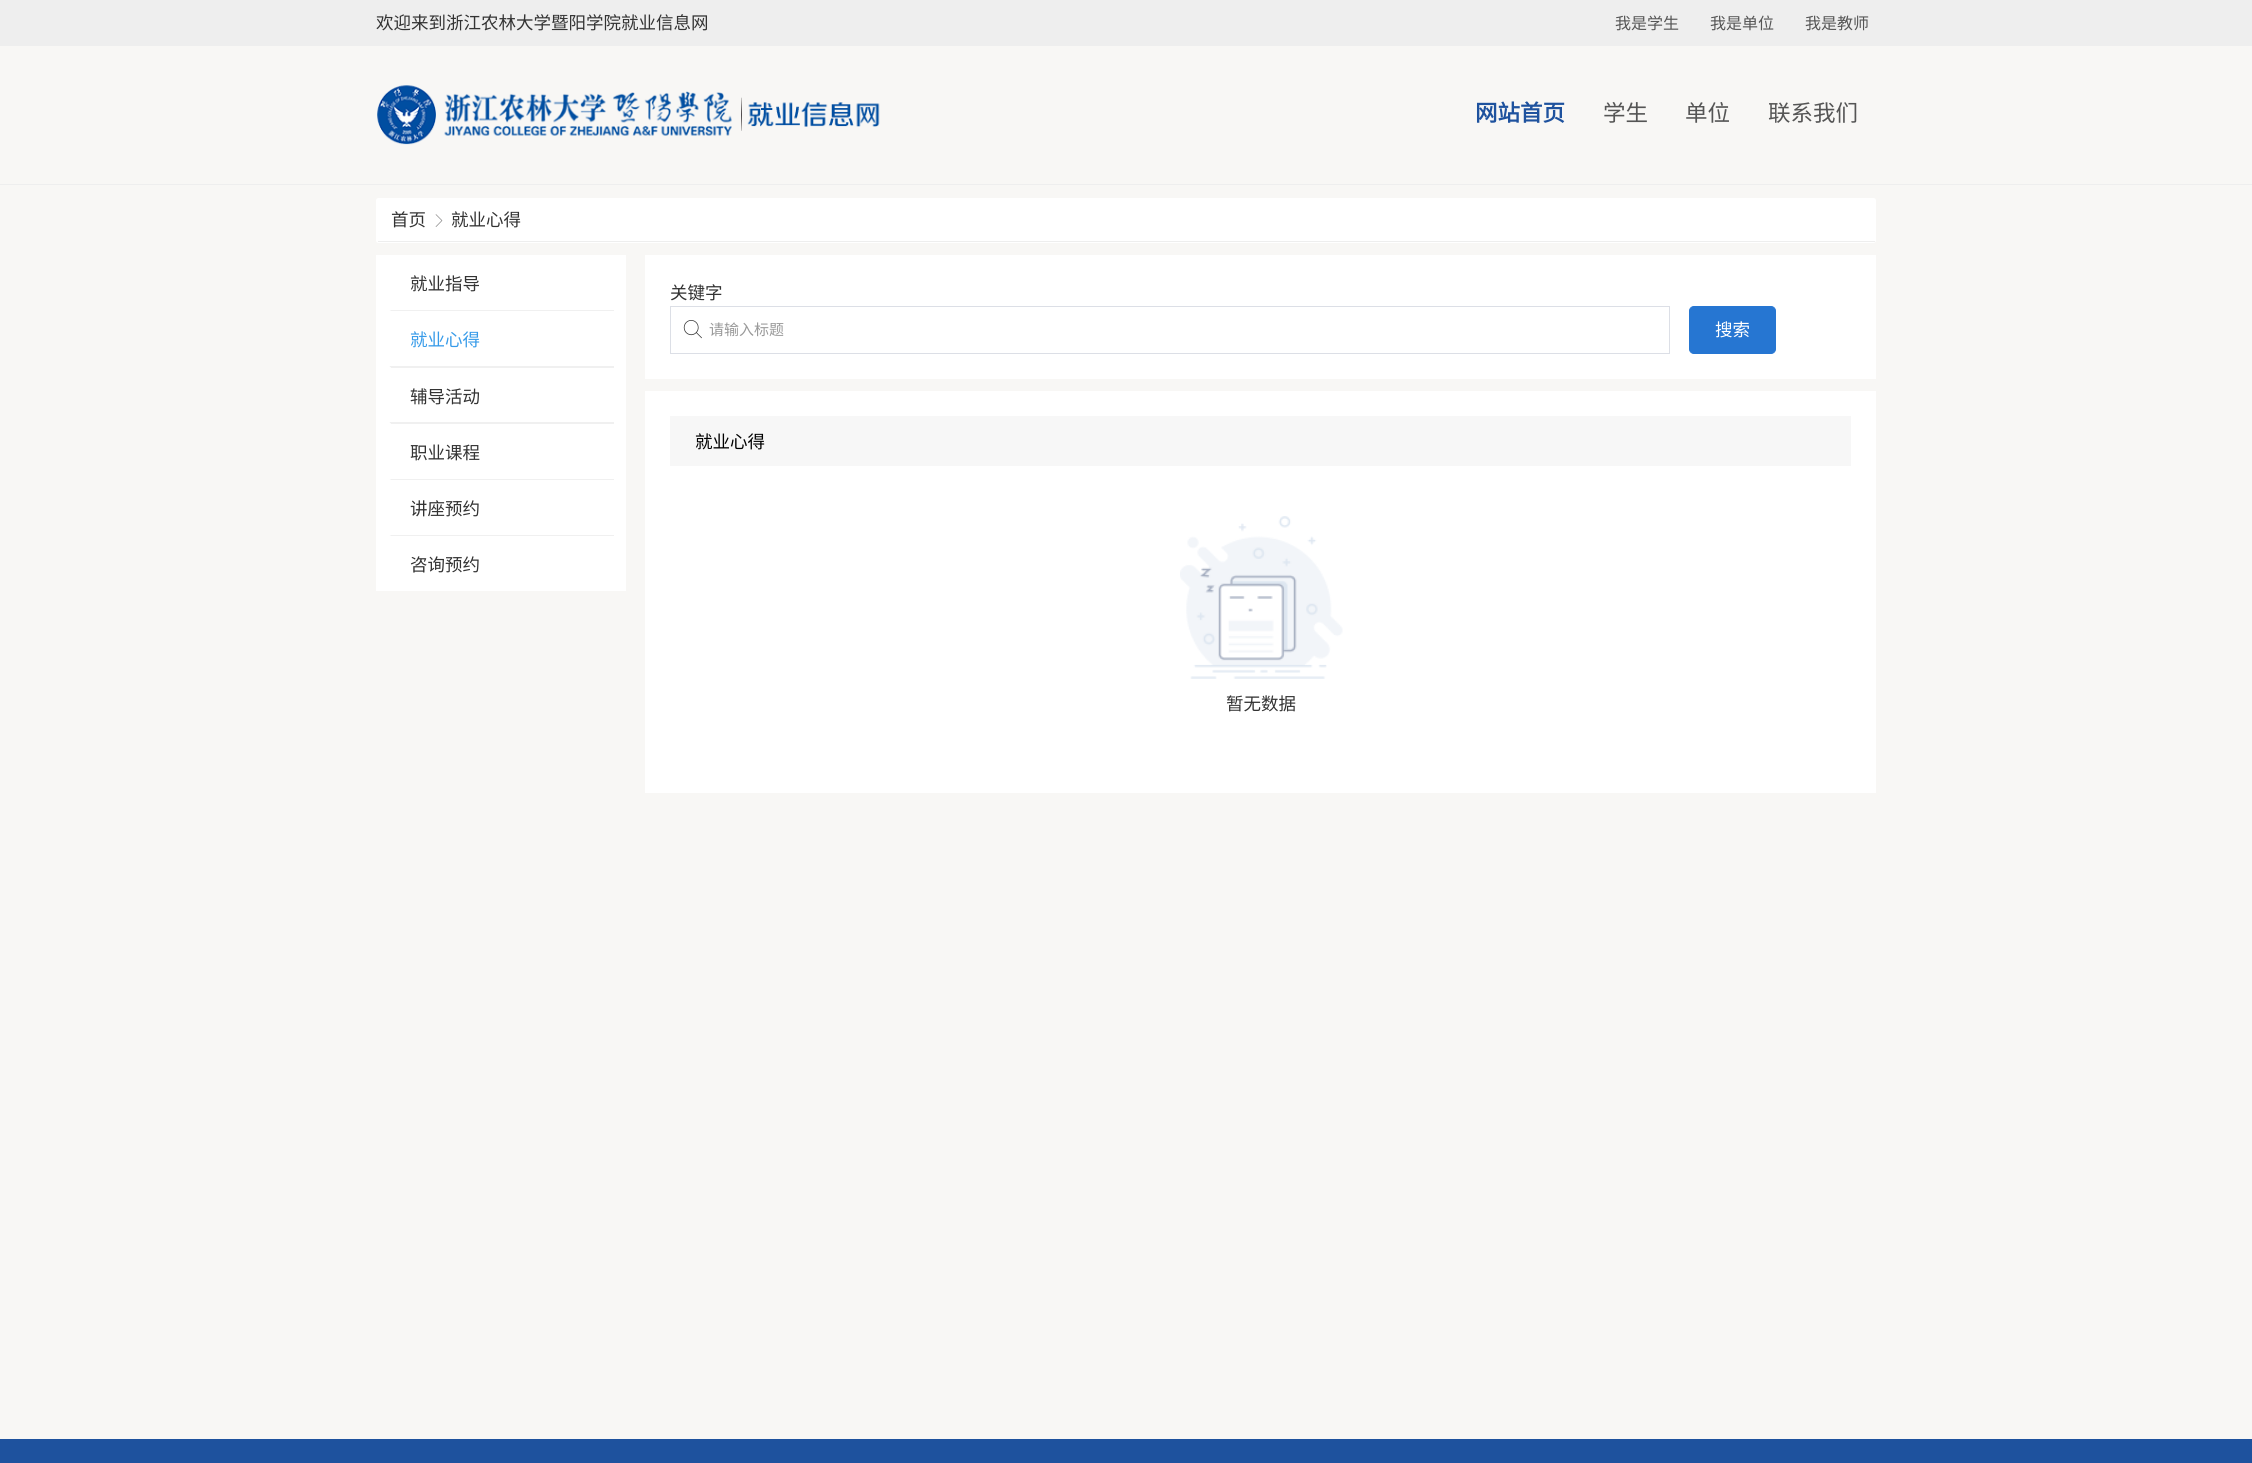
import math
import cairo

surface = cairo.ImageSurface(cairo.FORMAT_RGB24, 2252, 1463)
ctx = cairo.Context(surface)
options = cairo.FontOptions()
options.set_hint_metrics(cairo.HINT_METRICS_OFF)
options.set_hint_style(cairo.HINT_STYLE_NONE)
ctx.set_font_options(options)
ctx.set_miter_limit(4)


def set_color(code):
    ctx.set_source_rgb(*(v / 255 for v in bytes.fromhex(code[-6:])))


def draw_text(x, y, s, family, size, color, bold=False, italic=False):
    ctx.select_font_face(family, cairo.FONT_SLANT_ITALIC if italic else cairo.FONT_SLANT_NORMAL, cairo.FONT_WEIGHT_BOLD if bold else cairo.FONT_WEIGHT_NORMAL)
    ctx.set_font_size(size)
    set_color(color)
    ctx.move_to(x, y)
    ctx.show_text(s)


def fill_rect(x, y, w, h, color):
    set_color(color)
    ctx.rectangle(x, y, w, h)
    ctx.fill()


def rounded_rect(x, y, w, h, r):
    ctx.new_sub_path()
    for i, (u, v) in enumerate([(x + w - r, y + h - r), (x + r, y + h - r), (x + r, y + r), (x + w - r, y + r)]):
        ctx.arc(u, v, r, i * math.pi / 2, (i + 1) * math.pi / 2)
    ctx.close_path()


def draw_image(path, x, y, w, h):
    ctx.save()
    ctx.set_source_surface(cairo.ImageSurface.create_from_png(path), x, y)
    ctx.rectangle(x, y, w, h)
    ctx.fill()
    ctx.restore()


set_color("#f8f7f5")
ctx.paint()
fill_rect(0, 0, 2252, 46, "#eeeeee")
draw_text(376, 29, "欢迎来到浙江农林大学暨阳学院就业信息网", "Noto Sans CJK SC", 17.5, "#333333")
draw_text(1615, 29, "我是学生", "Noto Sans CJK SC", 16, "#555555")
draw_text(1710, 29, "我是单位", "Noto Sans CJK SC", 16, "#555555")
draw_text(1805, 29, "我是教师", "Noto Sans CJK SC", 16, "#555555")
fill_rect(0, 184, 2252, 1, "#eeeeee")
draw_image("assets/img1.png", 377, 85, 503, 60)
draw_text(1475, 121, "网站首页", "Noto Sans CJK SC", 22.5, "#1e529e", bold=True)
draw_text(1603, 121, "学生", "Noto Sans CJK SC", 22.5, "#555555")
draw_text(1685, 121, "单位", "Noto Sans CJK SC", 22.5, "#555555")
draw_text(1768, 121, "联系我们", "Noto Sans CJK SC", 22.5, "#555555")
set_color("#ffffff")
rounded_rect(376, 198, 1500, 45, 2.5)
ctx.fill()
fill_rect(378, 241, 1497, 1, "#eeeeee")
draw_text(391, 226, "首页", "Noto Sans CJK SC", 17.5, "#333333")
draw_image("assets/img2.png", 435, 214, 8, 13)
draw_text(451, 226, "就业心得", "Noto Sans CJK SC", 17.5, "#333333")
fill_rect(376, 255, 250, 336, "#ffffff")
draw_text(410, 290, "就业指导", "Noto Sans CJK SC", 17.5, "#333333")
set_color("#f0f0f0")
ctx.new_path()
ctx.move_to(389, 310)
ctx.line_to(614, 310)
ctx.line_to(614, 311)
ctx.line_to(391, 311)
ctx.close_path()
ctx.fill()
set_color("#ffffff")
ctx.new_path()
ctx.move_to(389, 366)
ctx.line_to(389, 310)
ctx.line_to(391, 311)
ctx.line_to(391, 366)
ctx.close_path()
ctx.fill()
draw_text(410, 346, "就业心得", "Noto Sans CJK SC", 17.5, "#379be9")
set_color("#f0f0f0")
ctx.new_path()
ctx.move_to(389, 366)
ctx.line_to(614, 366)
ctx.line_to(614, 368)
ctx.line_to(391, 368)
ctx.close_path()
ctx.fill()
set_color("#ffffff")
ctx.new_path()
ctx.move_to(389, 422)
ctx.line_to(389, 366)
ctx.line_to(391, 368)
ctx.line_to(391, 422)
ctx.close_path()
ctx.fill()
draw_text(410, 403, "辅导活动", "Noto Sans CJK SC", 17.5, "#333333")
set_color("#f0f0f0")
ctx.new_path()
ctx.move_to(389, 422)
ctx.line_to(614, 422)
ctx.line_to(614, 424)
ctx.line_to(391, 424)
ctx.close_path()
ctx.fill()
set_color("#ffffff")
ctx.new_path()
ctx.move_to(389, 479)
ctx.line_to(389, 422)
ctx.line_to(391, 424)
ctx.line_to(391, 479)
ctx.close_path()
ctx.fill()
draw_text(410, 459, "职业课程", "Noto Sans CJK SC", 17.5, "#333333")
set_color("#f0f0f0")
ctx.new_path()
ctx.move_to(389, 479)
ctx.line_to(614, 479)
ctx.line_to(614, 480)
ctx.line_to(391, 480)
ctx.close_path()
ctx.fill()
set_color("#ffffff")
ctx.new_path()
ctx.move_to(389, 535)
ctx.line_to(389, 479)
ctx.line_to(391, 480)
ctx.line_to(391, 535)
ctx.close_path()
ctx.fill()
draw_text(410, 515, "讲座预约", "Noto Sans CJK SC", 17.5, "#333333")
set_color("#f0f0f0")
ctx.new_path()
ctx.move_to(389, 535)
ctx.line_to(614, 535)
ctx.line_to(614, 536)
ctx.line_to(391, 536)
ctx.close_path()
ctx.fill()
set_color("#ffffff")
ctx.new_path()
ctx.move_to(389, 591)
ctx.line_to(389, 535)
ctx.line_to(391, 536)
ctx.line_to(391, 591)
ctx.close_path()
ctx.fill()
draw_text(410, 571, "咨询预约", "Noto Sans CJK SC", 17.5, "#333333")
fill_rect(645, 255, 1231, 124, "#ffffff")
draw_text(670, 299, "关键字", "Noto Sans CJK SC", 17.5, "#333333")
ctx.rectangle(670.5, 306.5, 999, 47)
set_color("#dcdfe6")
ctx.set_line_width(1)
ctx.stroke()
draw_image("assets/img3.png", 683, 320, 19, 19)
draw_text(709, 335, "请输入标题", "Noto Sans CJK SC", 15, "#999999")
set_color("#2676d2")
rounded_rect(1689.5, 306.5, 86, 47, 4.5)
ctx.fill_preserve()
ctx.stroke()
draw_text(1715, 336, "搜索", "Noto Sans CJK SC", 17.5, "#ffffff")
fill_rect(645, 391, 1231, 402, "#ffffff")
fill_rect(670, 416, 1181, 50, "#f7f7f7")
draw_text(695, 448, "就业心得", "Noto Sans CJK SC", 17.5, "#000000")
draw_image("assets/img4.png", 1180, 516, 163, 163)
draw_text(1226, 710, "暂无数据", "Noto Sans CJK SC", 17.5, "#333333")
fill_rect(0, 1439, 2252, 24, "#1e529e")
surface.write_to_png("output.png")
